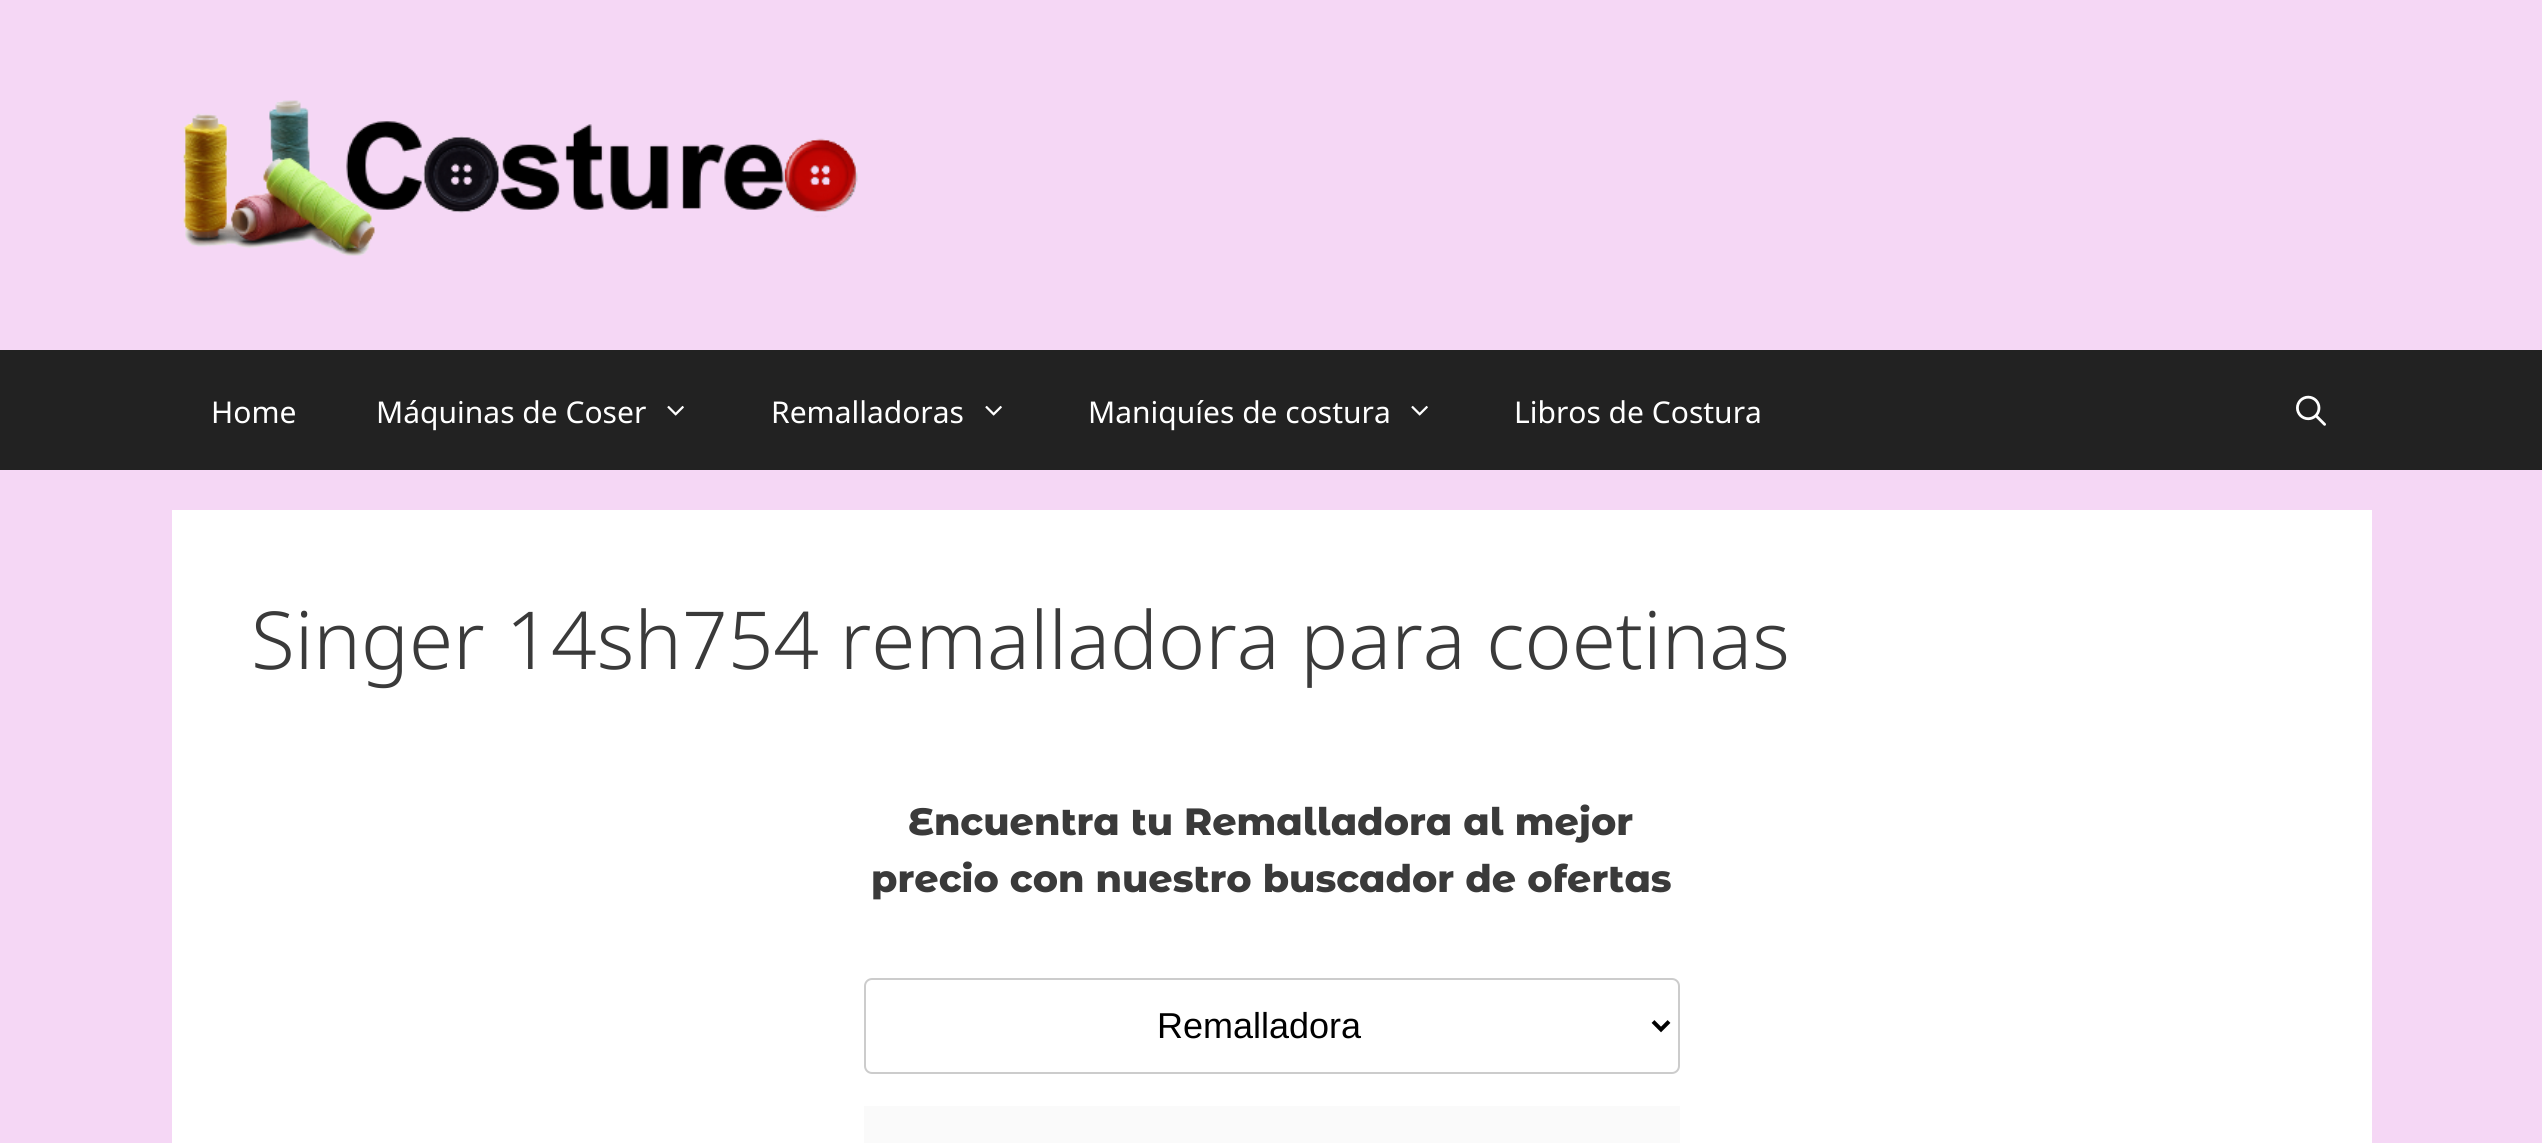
import math
import cairo

surface = cairo.ImageSurface(cairo.FORMAT_RGB24, 2542, 1143)
ctx = cairo.Context(surface)
options = cairo.FontOptions()
options.set_hint_metrics(cairo.HINT_METRICS_OFF)
options.set_hint_style(cairo.HINT_STYLE_NONE)
ctx.set_font_options(options)
ctx.set_miter_limit(4)


def set_color(code):
    ctx.set_source_rgb(*(v / 255 for v in bytes.fromhex(code[-6:])))


def draw_text(x, y, s, family, size, color, bold=False, italic=False):
    ctx.select_font_face(family, cairo.FONT_SLANT_ITALIC if italic else cairo.FONT_SLANT_NORMAL, cairo.FONT_WEIGHT_BOLD if bold else cairo.FONT_WEIGHT_NORMAL)
    ctx.set_font_size(size)
    set_color(color)
    ctx.move_to(x, y)
    ctx.show_text(s)


def fill_rect(x, y, w, h, color):
    set_color(color)
    ctx.rectangle(x, y, w, h)
    ctx.fill()


def rounded_rect(x, y, w, h, r):
    ctx.new_sub_path()
    for i, (u, v) in enumerate([(x + w - r, y + h - r), (x + r, y + h - r), (x + r, y + r), (x + w - r, y + r)]):
        ctx.arc(u, v, r, i * math.pi / 2, (i + 1) * math.pi / 2)
    ctx.close_path()


def draw_image(path, x, y, w, h):
    ctx.save()
    ctx.set_source_surface(cairo.ImageSurface.create_from_png(path), x, y)
    ctx.rectangle(x, y, w, h)
    ctx.fill()
    ctx.restore()


set_color("#f5d7f5")
ctx.paint()
draw_image("assets/img1.png", 183, 100, 675, 156)
fill_rect(0, 350, 2542, 120, "#222222")
draw_text(211, 423, "Home", "Noto Sans", 30, "#ffffff")
draw_text(376, 423, "Máquinas de Coser", "Noto Sans", 30, "#ffffff")
draw_image("assets/img2.png", 667, 405, 17, 11)
draw_text(771, 423, "Remalladoras", "Noto Sans", 30, "#ffffff")
draw_image("assets/img2.png", 985, 405, 17, 11)
draw_text(1088, 423, "Maniquíes de costura", "Noto Sans", 30, "#ffffff")
draw_image("assets/img2.png", 1411, 405, 17, 11)
draw_text(1514, 423, "Libros de Costura", "Noto Sans", 30, "#ffffff")
draw_image("assets/img3.png", 2296, 395, 30, 31)
fill_rect(172, 510, 2200, 633, "#ffffff")
draw_text(251, 669, "Singer 14sh754 remalladora para coetinas", "Noto Sans Light", 80, "#3a3a3a")
draw_text(908, 835, "Encuentra tu Remalladora al mejor", "Montserrat Alternates ExtraBold", 38, "#3a3a3a")
draw_text(871, 892, "precio con nuestro buscador de ofertas", "Montserrat Alternates ExtraBold", 38, "#3a3a3a")
rounded_rect(865, 979, 814, 94, 7)
set_color("#cccccc")
ctx.stroke()
ctx.new_path()
ctx.move_to(1653, 1021.5)
ctx.line_to(1661, 1029.5)
ctx.line_to(1669, 1021.5)
set_color("#000000")
ctx.set_line_width(4)
ctx.stroke()
draw_text(1157, 1038, "Remalladora", "Liberation Sans", 36, "#000000")
fill_rect(864, 1106, 816, 37, "#fafafa")
surface.write_to_png("output.png")
